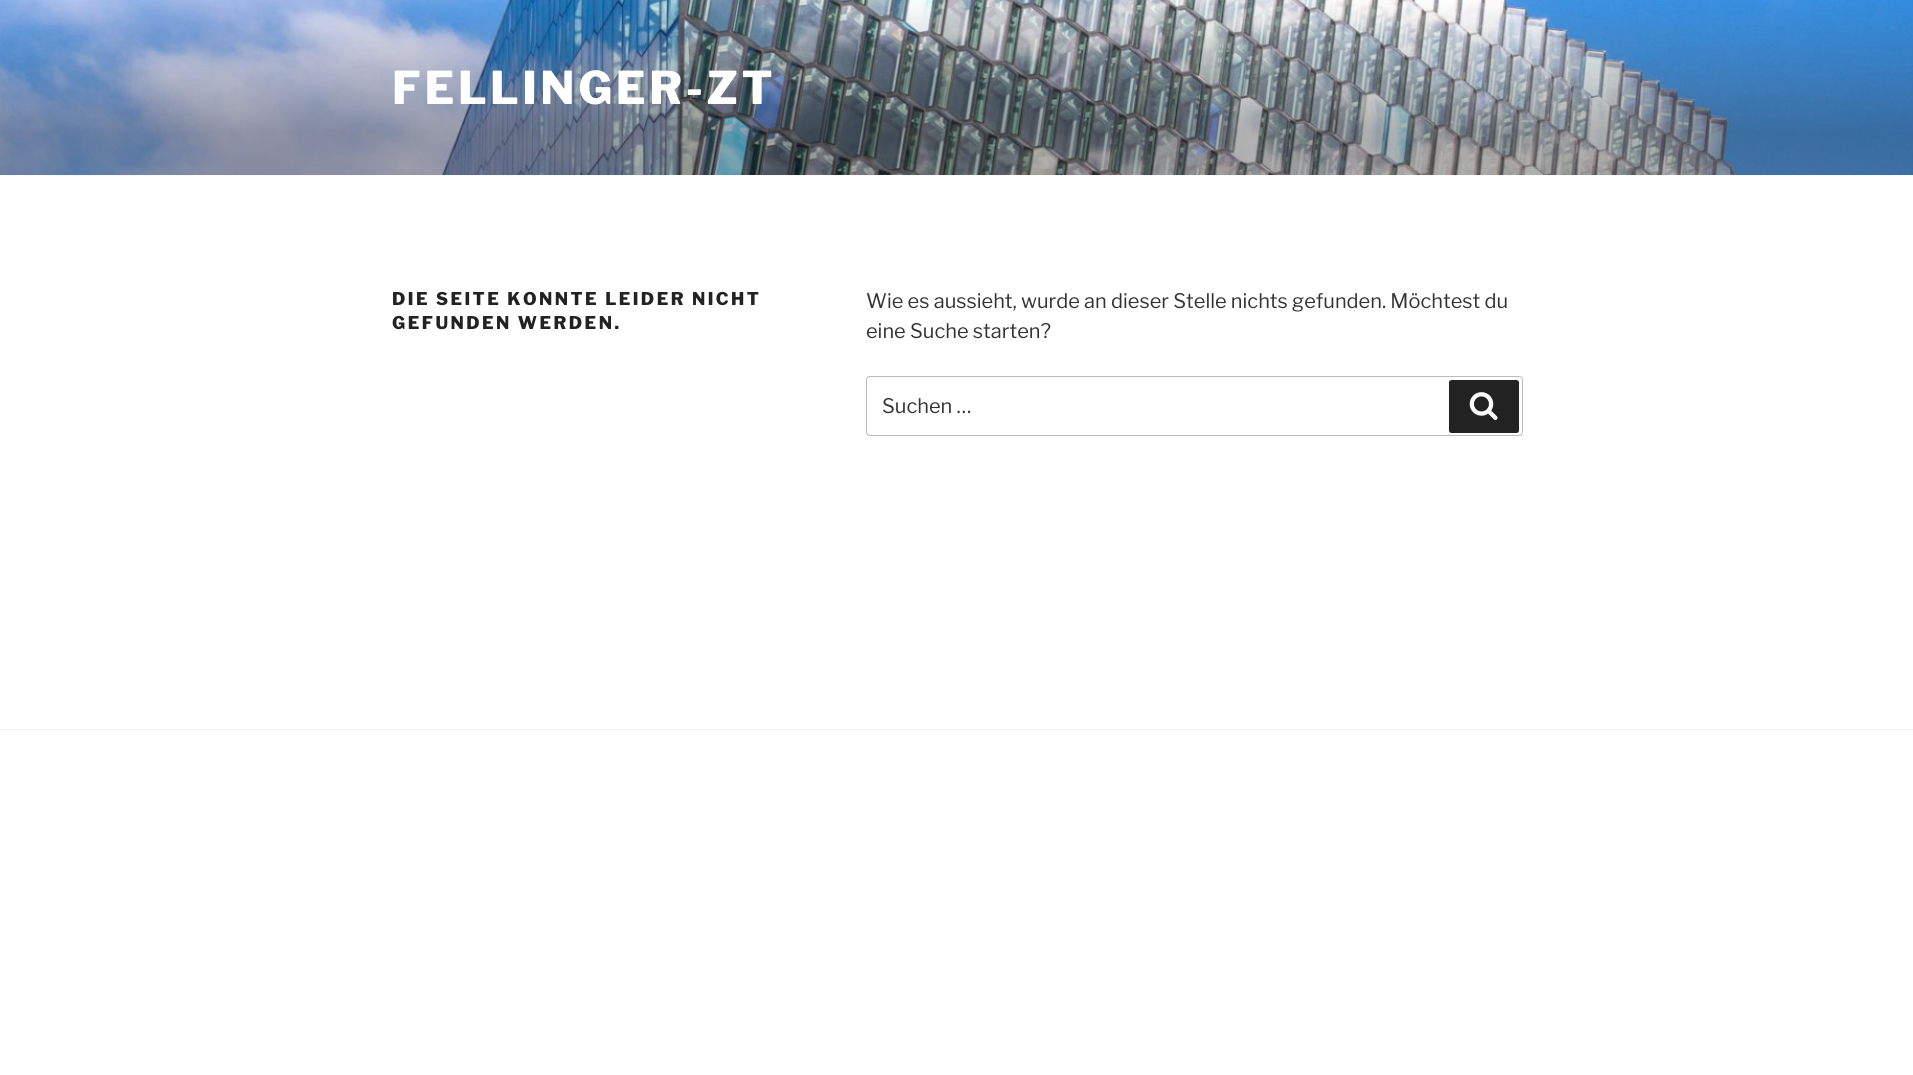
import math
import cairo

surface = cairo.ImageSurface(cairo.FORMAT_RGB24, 1913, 1075)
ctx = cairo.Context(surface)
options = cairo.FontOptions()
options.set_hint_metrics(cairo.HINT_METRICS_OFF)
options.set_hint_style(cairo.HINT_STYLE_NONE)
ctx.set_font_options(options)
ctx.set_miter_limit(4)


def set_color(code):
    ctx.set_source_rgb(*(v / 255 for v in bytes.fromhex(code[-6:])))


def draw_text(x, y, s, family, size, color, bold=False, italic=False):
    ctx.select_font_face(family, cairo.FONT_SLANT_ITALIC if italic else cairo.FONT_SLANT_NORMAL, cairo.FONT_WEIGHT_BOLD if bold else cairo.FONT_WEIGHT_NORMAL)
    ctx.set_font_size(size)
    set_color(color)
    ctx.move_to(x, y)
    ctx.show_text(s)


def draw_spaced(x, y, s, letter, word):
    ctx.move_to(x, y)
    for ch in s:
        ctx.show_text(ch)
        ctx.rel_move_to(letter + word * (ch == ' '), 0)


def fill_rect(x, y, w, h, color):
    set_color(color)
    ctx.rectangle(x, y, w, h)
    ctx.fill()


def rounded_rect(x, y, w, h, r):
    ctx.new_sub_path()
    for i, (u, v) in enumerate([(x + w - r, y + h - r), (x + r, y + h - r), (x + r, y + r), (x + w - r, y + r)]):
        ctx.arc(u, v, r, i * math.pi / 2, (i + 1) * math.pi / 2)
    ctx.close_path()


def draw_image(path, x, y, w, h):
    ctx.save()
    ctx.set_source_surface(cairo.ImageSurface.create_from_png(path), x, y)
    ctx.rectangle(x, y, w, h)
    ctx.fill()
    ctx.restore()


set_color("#ffffff")
ctx.paint()
fill_rect(0, 175, 1913, 1, "#fafafa")
draw_image("assets/img1.png", 0, 0, 1913, 175)
ctx.select_font_face("Libre Franklin Thin")
ctx.set_font_size(45)
set_color("#ffffff")
draw_spaced(392, 104, "FELLINGER-ZT", 3.6, 0)
ctx.set_font_size(17.5)
set_color("#222222")
draw_spaced(392, 305, "DIE SEITE KONNTE LEIDER NICHT", 2.45, 0)
draw_spaced(392, 329, "GEFUNDEN WERDEN.", 2.45, 0)
draw_text(866, 308, "Wie es aussieht, wurde an dieser Stelle nichts gefunden. Möchtest du", "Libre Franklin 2 Thin", 20, "#333333")
draw_text(866, 338, "eine Suche starten?", "Libre Franklin 2 Thin", 20, "#333333")
rounded_rect(866.5, 376.5, 656, 59, 3.5)
set_color("#bbbbbb")
ctx.set_line_width(1)
ctx.stroke()
draw_text(882, 413, "Suchen …", "Libre Franklin 2 Thin", 20, "#333333")
set_color("#222222")
rounded_rect(1449, 380, 70, 53, 2.5)
ctx.fill()
draw_image("assets/img2.png", 1469, 392, 29, 28)
fill_rect(0, 729, 1913, 1, "#eeeeee")
surface.write_to_png("output.png")
